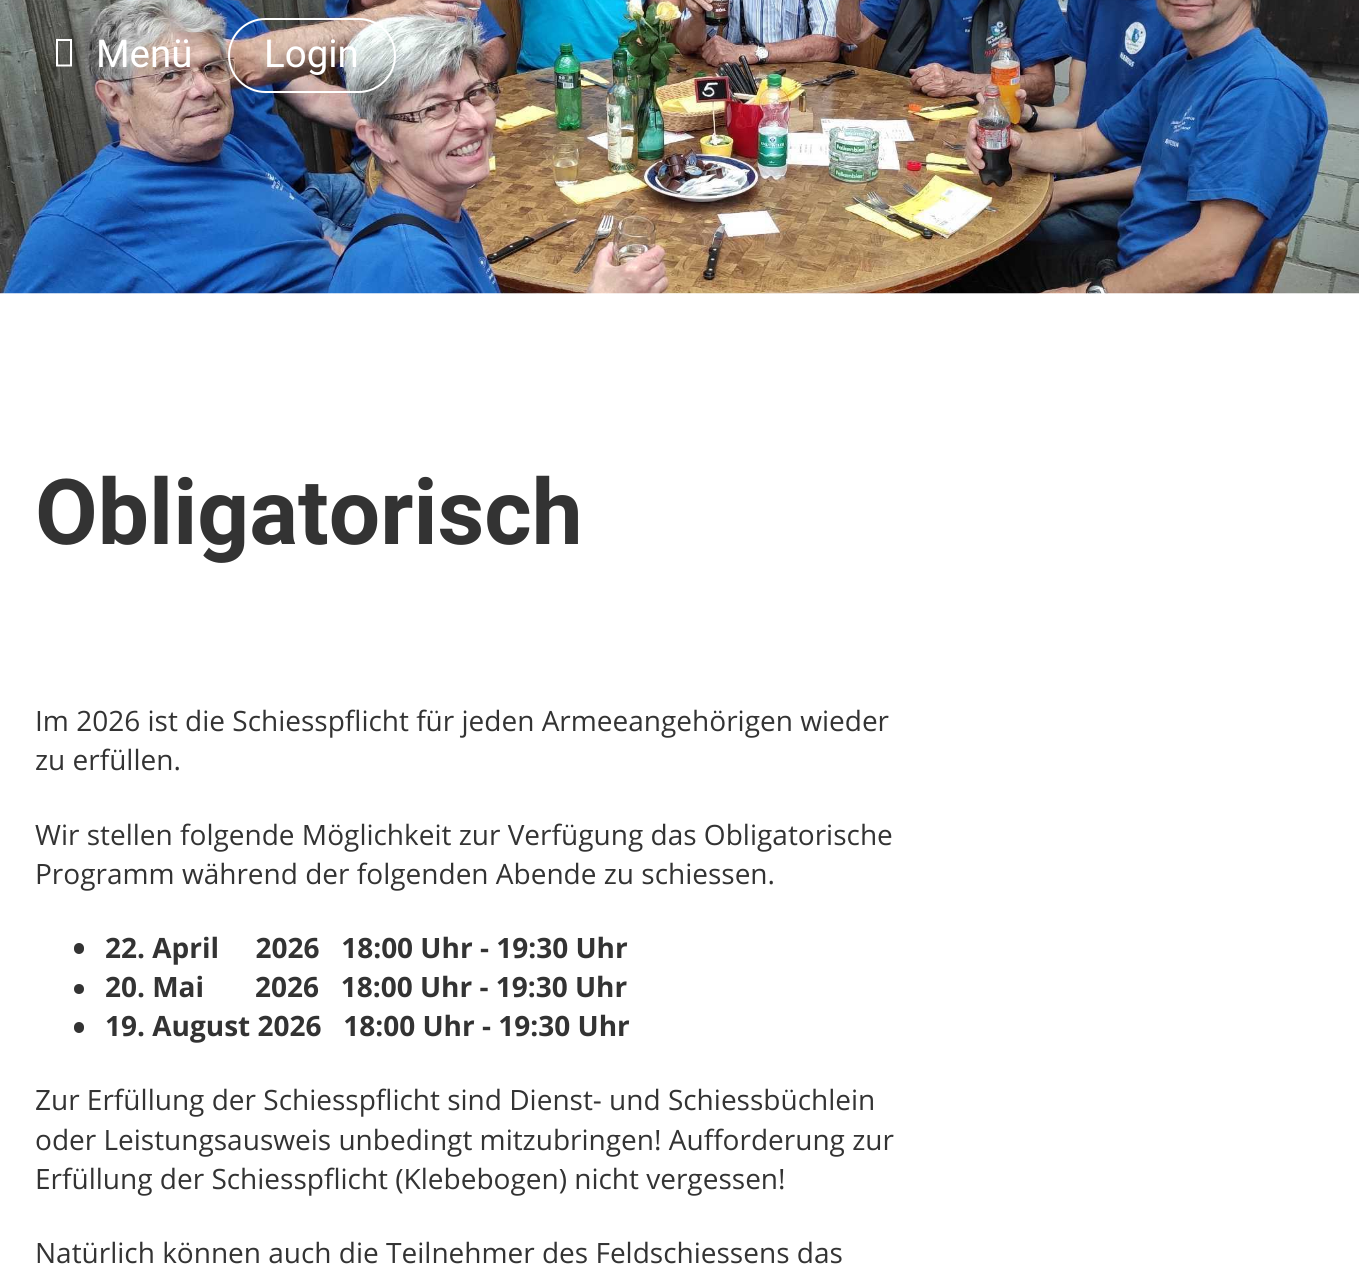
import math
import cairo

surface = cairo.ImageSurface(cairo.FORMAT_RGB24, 1359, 1285)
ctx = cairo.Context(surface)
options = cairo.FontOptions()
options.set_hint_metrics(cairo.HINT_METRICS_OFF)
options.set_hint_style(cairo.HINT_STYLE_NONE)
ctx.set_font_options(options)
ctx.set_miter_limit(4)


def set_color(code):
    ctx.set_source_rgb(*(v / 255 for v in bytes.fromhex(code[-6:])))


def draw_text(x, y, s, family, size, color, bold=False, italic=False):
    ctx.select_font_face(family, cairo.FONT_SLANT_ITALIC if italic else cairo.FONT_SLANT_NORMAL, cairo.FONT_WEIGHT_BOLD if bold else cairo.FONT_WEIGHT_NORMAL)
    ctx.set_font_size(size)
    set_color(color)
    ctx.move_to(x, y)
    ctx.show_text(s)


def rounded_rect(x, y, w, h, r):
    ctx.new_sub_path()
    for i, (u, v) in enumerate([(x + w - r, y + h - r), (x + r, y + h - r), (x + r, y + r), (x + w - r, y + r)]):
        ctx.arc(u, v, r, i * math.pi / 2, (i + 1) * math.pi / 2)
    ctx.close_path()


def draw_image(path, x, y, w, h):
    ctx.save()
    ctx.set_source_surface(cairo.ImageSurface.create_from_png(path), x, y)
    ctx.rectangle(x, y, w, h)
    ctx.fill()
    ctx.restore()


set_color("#ffffff")
ctx.paint()
draw_image("assets/img1.png", 0, 0, 1359, 294)
set_color("#ffffff")
ctx.new_path()
ctx.move_to(56, 66.5)
ctx.line_to(56, 39)
ctx.line_to(72, 39)
ctx.line_to(72, 66.5)
ctx.close_path()
ctx.move_to(58, 64.5)
ctx.line_to(70, 64.5)
ctx.line_to(70, 41)
ctx.line_to(58, 41)
ctx.close_path()
ctx.fill()
draw_text(96, 67, "Menü", "Roboto", 38.5, "#ffffff")
rounded_rect(229, 19, 166, 73, 36.5)
ctx.stroke()
draw_text(264, 67, "Login", "Roboto", 38.5, "#ffffff")
draw_text(35, 544, "Obligatorisch", "Roboto", 91, "#333333", bold=True)
draw_text(35, 731, "Im 2026 ist die Schiesspflicht für jeden Armeeangehörigen wieder", "Open Sans", 28, "#333333")
draw_text(35, 770, "zu erfüllen.", "Open Sans", 28, "#333333")
draw_text(35, 845, "Wir stellen folgende Möglichkeit zur Verfügung das Obligatorische", "Open Sans", 28, "#333333")
draw_text(35, 884, "Programm während der folgenden Abende zu schiessen.", "Open Sans", 28, "#333333")
rounded_rect(74, 943, 10, 11, 5)
ctx.fill()
draw_text(105, 958, "22. April     2026   18:00 Uhr - 19:30 Uhr", "Open Sans", 28, "#333333", bold=True)
ctx.new_path()
ctx.arc(79, 989, 5, 0, 2 * math.pi)
ctx.fill()
draw_text(105, 997, "20. Mai       2026   18:00 Uhr - 19:30 Uhr", "Open Sans", 28, "#333333", bold=True)
rounded_rect(74, 1022, 10, 11, 5)
ctx.fill()
draw_text(105, 1036, "19. August 2026   18:00 Uhr - 19:30 Uhr", "Open Sans", 28, "#333333", bold=True)
draw_text(35, 1110, "Zur Erfüllung der Schiesspflicht sind Dienst- und Schiessbüchlein", "Open Sans", 28, "#333333")
draw_text(35, 1150, "oder Leistungsausweis unbedingt mitzubringen! Aufforderung zur", "Open Sans", 28, "#333333")
draw_text(35, 1189, "Erfüllung der Schiesspflicht (Klebebogen) nicht vergessen!", "Open Sans", 28, "#333333")
draw_text(35, 1263, "Natürlich können auch die Teilnehmer des Feldschiessens das", "Open Sans", 28, "#333333")
surface.write_to_png("output.png")
